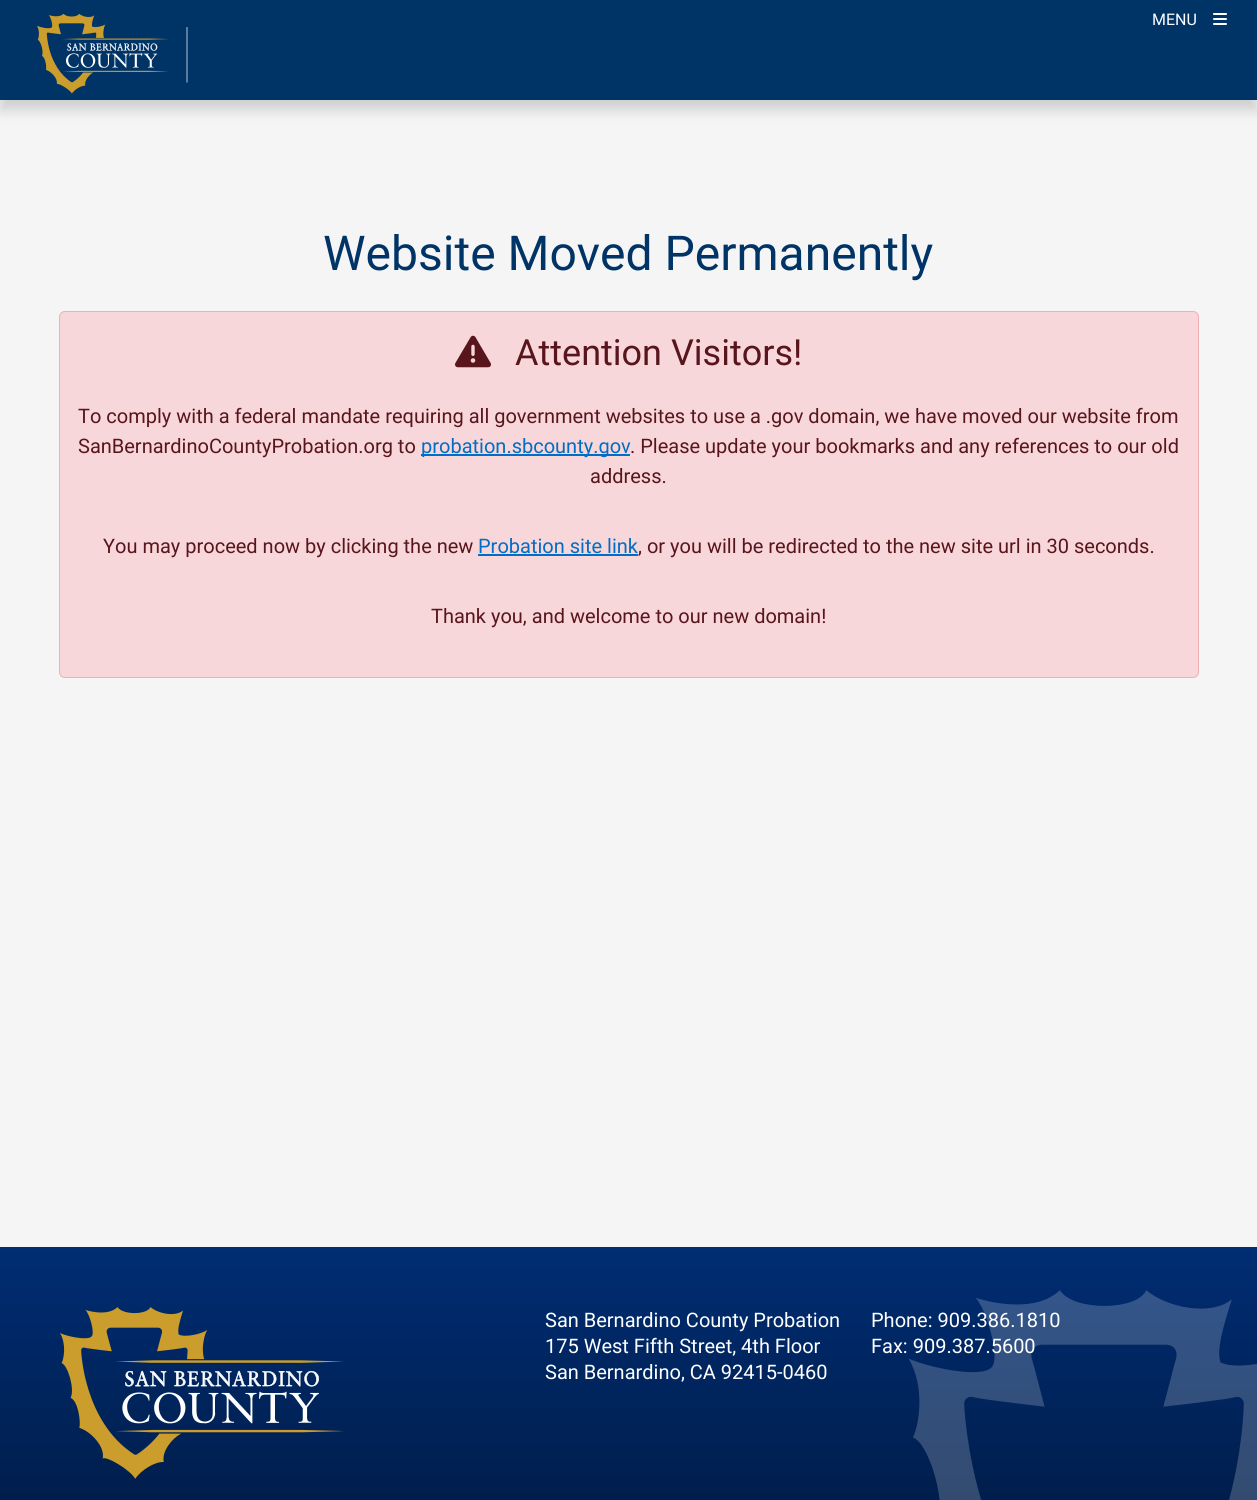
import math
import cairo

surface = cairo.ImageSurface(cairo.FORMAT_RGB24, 1257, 1500)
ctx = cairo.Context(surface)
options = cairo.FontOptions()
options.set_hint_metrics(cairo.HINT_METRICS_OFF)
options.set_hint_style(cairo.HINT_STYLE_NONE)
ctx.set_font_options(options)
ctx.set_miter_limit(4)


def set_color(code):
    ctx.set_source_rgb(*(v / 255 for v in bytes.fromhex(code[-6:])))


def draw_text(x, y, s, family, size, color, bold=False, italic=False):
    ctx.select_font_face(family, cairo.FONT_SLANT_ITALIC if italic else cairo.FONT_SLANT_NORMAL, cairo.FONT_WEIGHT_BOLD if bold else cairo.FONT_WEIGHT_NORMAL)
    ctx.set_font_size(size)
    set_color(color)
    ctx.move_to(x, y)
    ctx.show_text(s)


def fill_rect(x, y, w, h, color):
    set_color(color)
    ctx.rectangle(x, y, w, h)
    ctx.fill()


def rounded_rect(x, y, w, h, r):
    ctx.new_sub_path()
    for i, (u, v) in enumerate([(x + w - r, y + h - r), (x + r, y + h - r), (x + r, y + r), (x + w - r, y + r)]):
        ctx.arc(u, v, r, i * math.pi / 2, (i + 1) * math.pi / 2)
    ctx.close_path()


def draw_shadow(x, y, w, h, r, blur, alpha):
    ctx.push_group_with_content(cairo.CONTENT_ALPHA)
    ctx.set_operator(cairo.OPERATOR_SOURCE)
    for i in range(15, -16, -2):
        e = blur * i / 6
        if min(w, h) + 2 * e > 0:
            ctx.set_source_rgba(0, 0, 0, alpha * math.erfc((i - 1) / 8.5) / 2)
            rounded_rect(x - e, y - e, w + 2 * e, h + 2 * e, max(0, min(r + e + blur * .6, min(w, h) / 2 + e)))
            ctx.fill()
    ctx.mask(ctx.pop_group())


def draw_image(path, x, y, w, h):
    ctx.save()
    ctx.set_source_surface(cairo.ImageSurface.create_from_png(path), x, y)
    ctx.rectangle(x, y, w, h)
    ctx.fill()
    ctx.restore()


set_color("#f5f5f5")
ctx.paint()
set_color("#000000")
draw_shadow(0, 10, 1257, 100, 0, 7, 0.16)
fill_rect(0, 0, 1257, 100, "#003366")
draw_image("assets/img1.png", 37, 13, 132, 81)
ctx.new_path()
ctx.move_to(187, 82.5)
ctx.line_to(187, 27)
set_color("#ffffff")
ctx.set_line_width(0.7)
ctx.stroke()
draw_text(1152, 25, "MENU", "Roboto", 16, "#ffffff")
draw_image("assets/img2.png", 1213, 13, 14, 12)
draw_text(323, 270, "Website Moved Permanently", "Roboto", 48, "#003366")
set_color("#f8d7da")
rounded_rect(59.5, 311.5, 1139, 366, 5.5)
ctx.fill_preserve()
set_color("#f1aeb5")
ctx.set_line_width(1)
ctx.stroke()
draw_image("assets/img3.png", 455, 335, 36, 33)
draw_text(515, 365, "Attention Visitors!", "Roboto", 36, "#58151c")
draw_text(78, 423, "To comply with a federal mandate requiring all government websites to use a .gov domain, we have moved our website from", "Roboto", 20, "#58151c")
draw_text(78, 453, "SanBernardinoCountyProbation.org to", "Roboto", 20, "#58151c")
fill_rect(421, 454, 209, 2, "#016dc4")
draw_text(421, 453, "probation.sbcounty.gov", "Roboto", 20, "#016dc4")
draw_text(630, 453, ". Please update your bookmarks and any references to our old", "Roboto", 20, "#58151c")
draw_text(590, 483, "address.", "Roboto", 20, "#58151c")
draw_text(103, 553, "You may proceed now by clicking the new", "Roboto", 20, "#58151c")
draw_text(478, 553, "Probation site link", "Roboto", 20, "#016dc4")
fill_rect(478, 554, 160, 2, "#016dc4")
draw_text(638, 553, ", or you will be redirected to the new site url in 30 seconds.", "Roboto", 20, "#58151c")
draw_text(431, 623, "Thank you, and welcome to our new domain!", "Roboto", 20, "#58151c")
gradient = cairo.LinearGradient(629, 1247, 629, 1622)
gradient.add_color_stop_rgba(0, 0, 0.176, 0.451, 1)
gradient.add_color_stop_rgba(1, 0, 0.09, 0.227, 1)
ctx.set_source(gradient)
ctx.rectangle(0, 1247, 1257, 253)
ctx.fill()
draw_image("assets/img4.png", 60, 1307, 284, 172)
draw_text(545, 1327, "San Bernardino County Probation", "Roboto", 20, "#ffffff")
draw_text(545, 1353, "175 West Fifth Street, 4th Floor", "Roboto", 20, "#ffffff")
draw_text(545, 1379, "San Bernardino, CA 92415-0460", "Roboto", 20, "#ffffff")
draw_image("assets/img5.png", 908, 1290, 349, 210)
draw_text(871, 1327, "Phone: 909.386.1810", "Roboto", 20, "#ffffff")
draw_text(871, 1353, "Fax: 909.387.5600", "Roboto", 20, "#ffffff")
surface.write_to_png("output.png")
